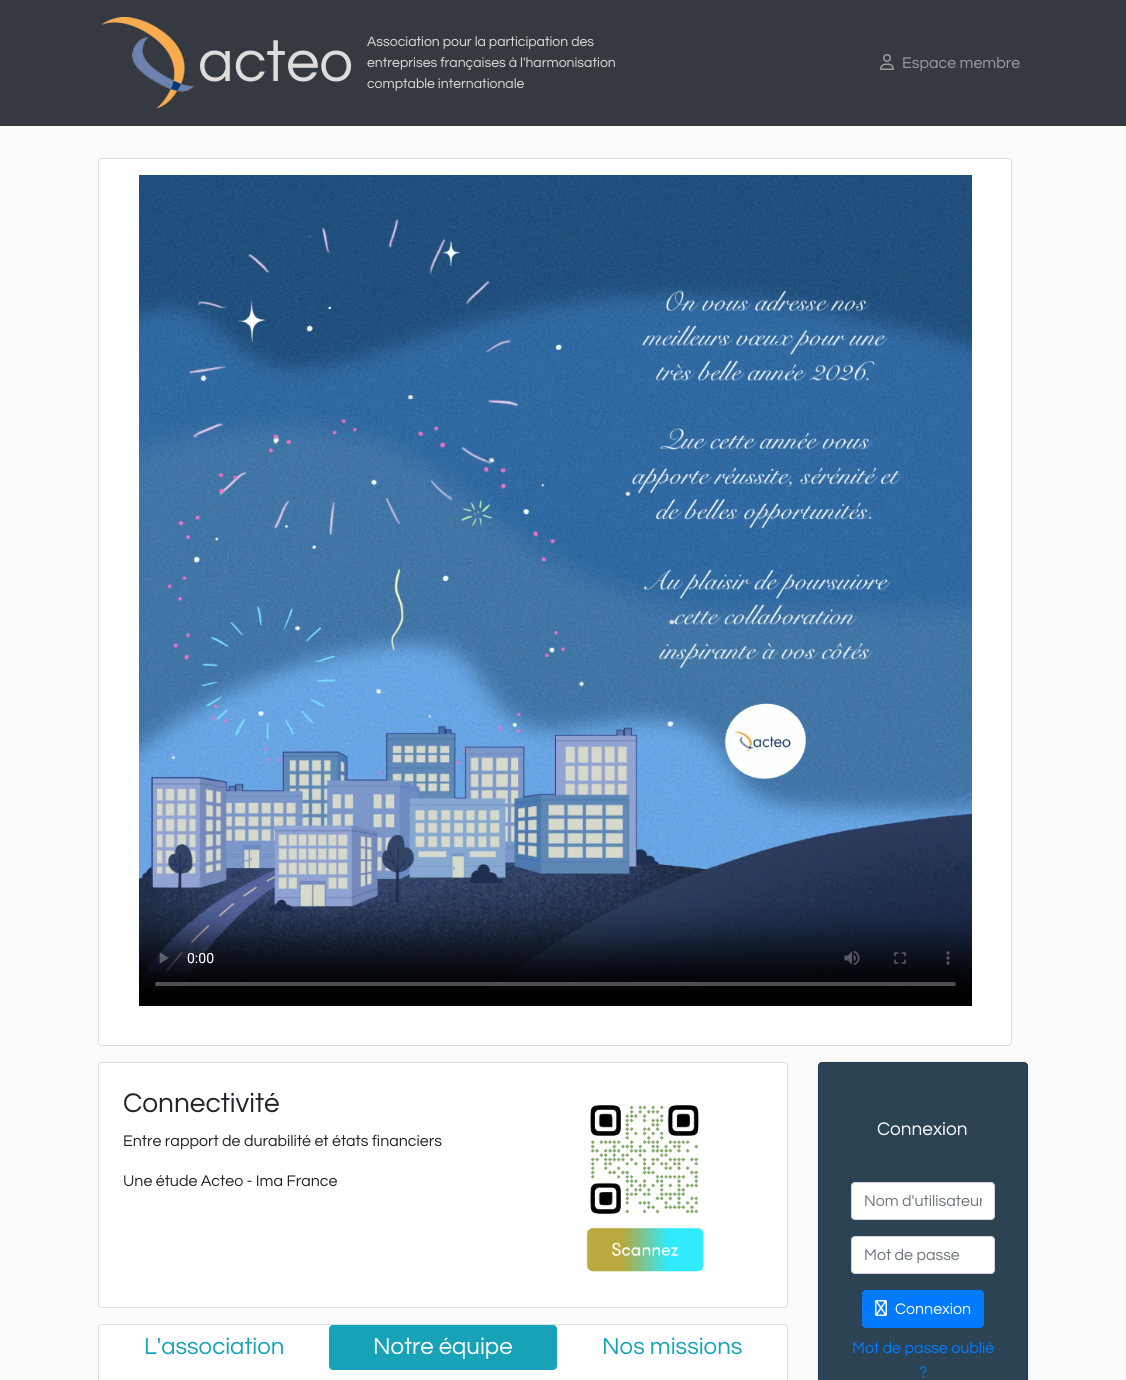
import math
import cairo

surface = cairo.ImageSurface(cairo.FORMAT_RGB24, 1126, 1380)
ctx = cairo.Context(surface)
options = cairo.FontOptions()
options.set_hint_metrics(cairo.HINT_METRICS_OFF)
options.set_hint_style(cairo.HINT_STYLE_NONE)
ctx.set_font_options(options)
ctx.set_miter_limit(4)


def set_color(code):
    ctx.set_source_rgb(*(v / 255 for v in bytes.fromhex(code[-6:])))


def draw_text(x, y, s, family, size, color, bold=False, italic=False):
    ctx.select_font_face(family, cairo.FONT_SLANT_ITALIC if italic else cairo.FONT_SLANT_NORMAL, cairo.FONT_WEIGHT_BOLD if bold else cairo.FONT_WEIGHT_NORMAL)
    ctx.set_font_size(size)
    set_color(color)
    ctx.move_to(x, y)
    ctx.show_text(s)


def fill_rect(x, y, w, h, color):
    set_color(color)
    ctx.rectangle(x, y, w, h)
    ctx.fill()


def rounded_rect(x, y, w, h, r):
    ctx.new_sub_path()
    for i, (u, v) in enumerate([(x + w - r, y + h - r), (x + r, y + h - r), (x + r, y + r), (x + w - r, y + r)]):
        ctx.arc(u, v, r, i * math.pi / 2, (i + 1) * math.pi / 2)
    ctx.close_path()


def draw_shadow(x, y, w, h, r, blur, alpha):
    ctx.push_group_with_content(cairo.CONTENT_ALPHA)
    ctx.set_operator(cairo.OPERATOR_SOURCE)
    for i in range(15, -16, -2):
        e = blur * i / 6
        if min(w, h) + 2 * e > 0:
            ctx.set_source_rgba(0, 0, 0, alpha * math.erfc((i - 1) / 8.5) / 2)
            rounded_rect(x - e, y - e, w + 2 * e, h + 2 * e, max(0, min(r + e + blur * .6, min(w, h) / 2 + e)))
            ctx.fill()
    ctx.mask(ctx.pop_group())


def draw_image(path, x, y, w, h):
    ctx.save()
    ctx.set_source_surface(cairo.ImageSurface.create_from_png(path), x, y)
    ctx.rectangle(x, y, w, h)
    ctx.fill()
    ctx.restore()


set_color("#343a40")
ctx.paint()
draw_image("assets/img1.png", 102, 17, 92, 91)
draw_text(198, 81, "acteo", "Questrial", 60, "#dddddd")
draw_text(367, 46, "Association pour la participation des", "Questrial", 14, "#dddddd")
draw_text(367, 67, "entreprises françaises à l'harmonisation", "Questrial", 14, "#dddddd")
draw_text(367, 88, "comptable internationale", "Questrial", 14, "#dddddd")
draw_image("assets/img2.png", 880, 54, 14, 16)
draw_text(902, 68, "Espace membre", "Questrial", 16, "#9a9da0")
fill_rect(0, 126, 1126, 1254, "#fbfbfc")
set_color("#ffffff")
rounded_rect(98.5, 158.5, 913, 887, 3.5)
ctx.fill_preserve()
set_color("#dfdfdf")
ctx.set_line_width(1)
ctx.stroke()
draw_image("assets/img3.png", 139, 175, 833, 831)
set_color("#ffffff")
rounded_rect(98.5, 1062.5, 689, 245, 3.5)
ctx.fill_preserve()
set_color("#dfdfdf")
ctx.stroke()
draw_text(123, 1112, "Connectivité", "Questrial", 28, "#212529")
draw_text(123, 1146, "Entre rapport de durabilité et états financiers", "Questrial", 16, "#212529")
draw_text(123, 1186, "Une étude Acteo - Ima France", "Questrial", 16, "#212529")
draw_image("assets/img4.png", 586, 1104, 118, 168)
set_color("#ffffff")
rounded_rect(98.5, 1324.5, 689, 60, 3.5)
ctx.fill_preserve()
set_color("#dfdfdf")
ctx.stroke()
draw_text(144, 1354, "L'association", "Questrial", 24, "#17a2b8")
rounded_rect(329, 1325, 228, 45, 4)
ctx.fill()
draw_text(373, 1354, "Notre équipe", "Questrial", 24, "#ffffff")
draw_text(602, 1354, "Nos missions", "Questrial", 24, "#17a2b8")
set_color("#000000")
draw_shadow(818, 1064, 210, 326, 4, 2, 0.07)
set_color("#2b4353")
rounded_rect(818, 1062, 210, 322, 4)
ctx.fill()
rounded_rect(818.5, 1062.5, 209, 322, 3.5)
ctx.set_source_rgba(0, 0, 0, 0.12)
ctx.stroke()
draw_text(877, 1135, "Connexion", "Questrial", 19, "#ffffff")
rounded_rect(851.5, 1182.5, 143, 37, 3.5)
ctx.fill_preserve()
set_color("#ced4da")
ctx.stroke()
ctx.save()
ctx.rectangle(864, 1193, 118, 16)
ctx.clip()
draw_text(864, 1206, "Nom d'utilisateur", "Questrial", 16, "#6c757d")
ctx.restore()
set_color("#ffffff")
rounded_rect(851.5, 1236.5, 143, 37, 3.5)
ctx.fill_preserve()
set_color("#ced4da")
ctx.stroke()
draw_text(864, 1260, "Mot de passe", "Questrial", 16, "#6c757d")
set_color("#007bff")
rounded_rect(862.5, 1290.5, 121, 37, 3.5)
ctx.fill_preserve()
ctx.stroke()
draw_image("assets/img5.png", 875, 1300, 12, 16)
draw_text(895, 1314, "Connexion", "Questrial", 16, "#ffffff")
draw_text(852, 1353, "Mot de passe oublié", "Questrial", 16, "#007bff")
draw_text(919, 1377, "?", "Questrial", 16, "#007bff")
surface.write_to_png("output.png")
